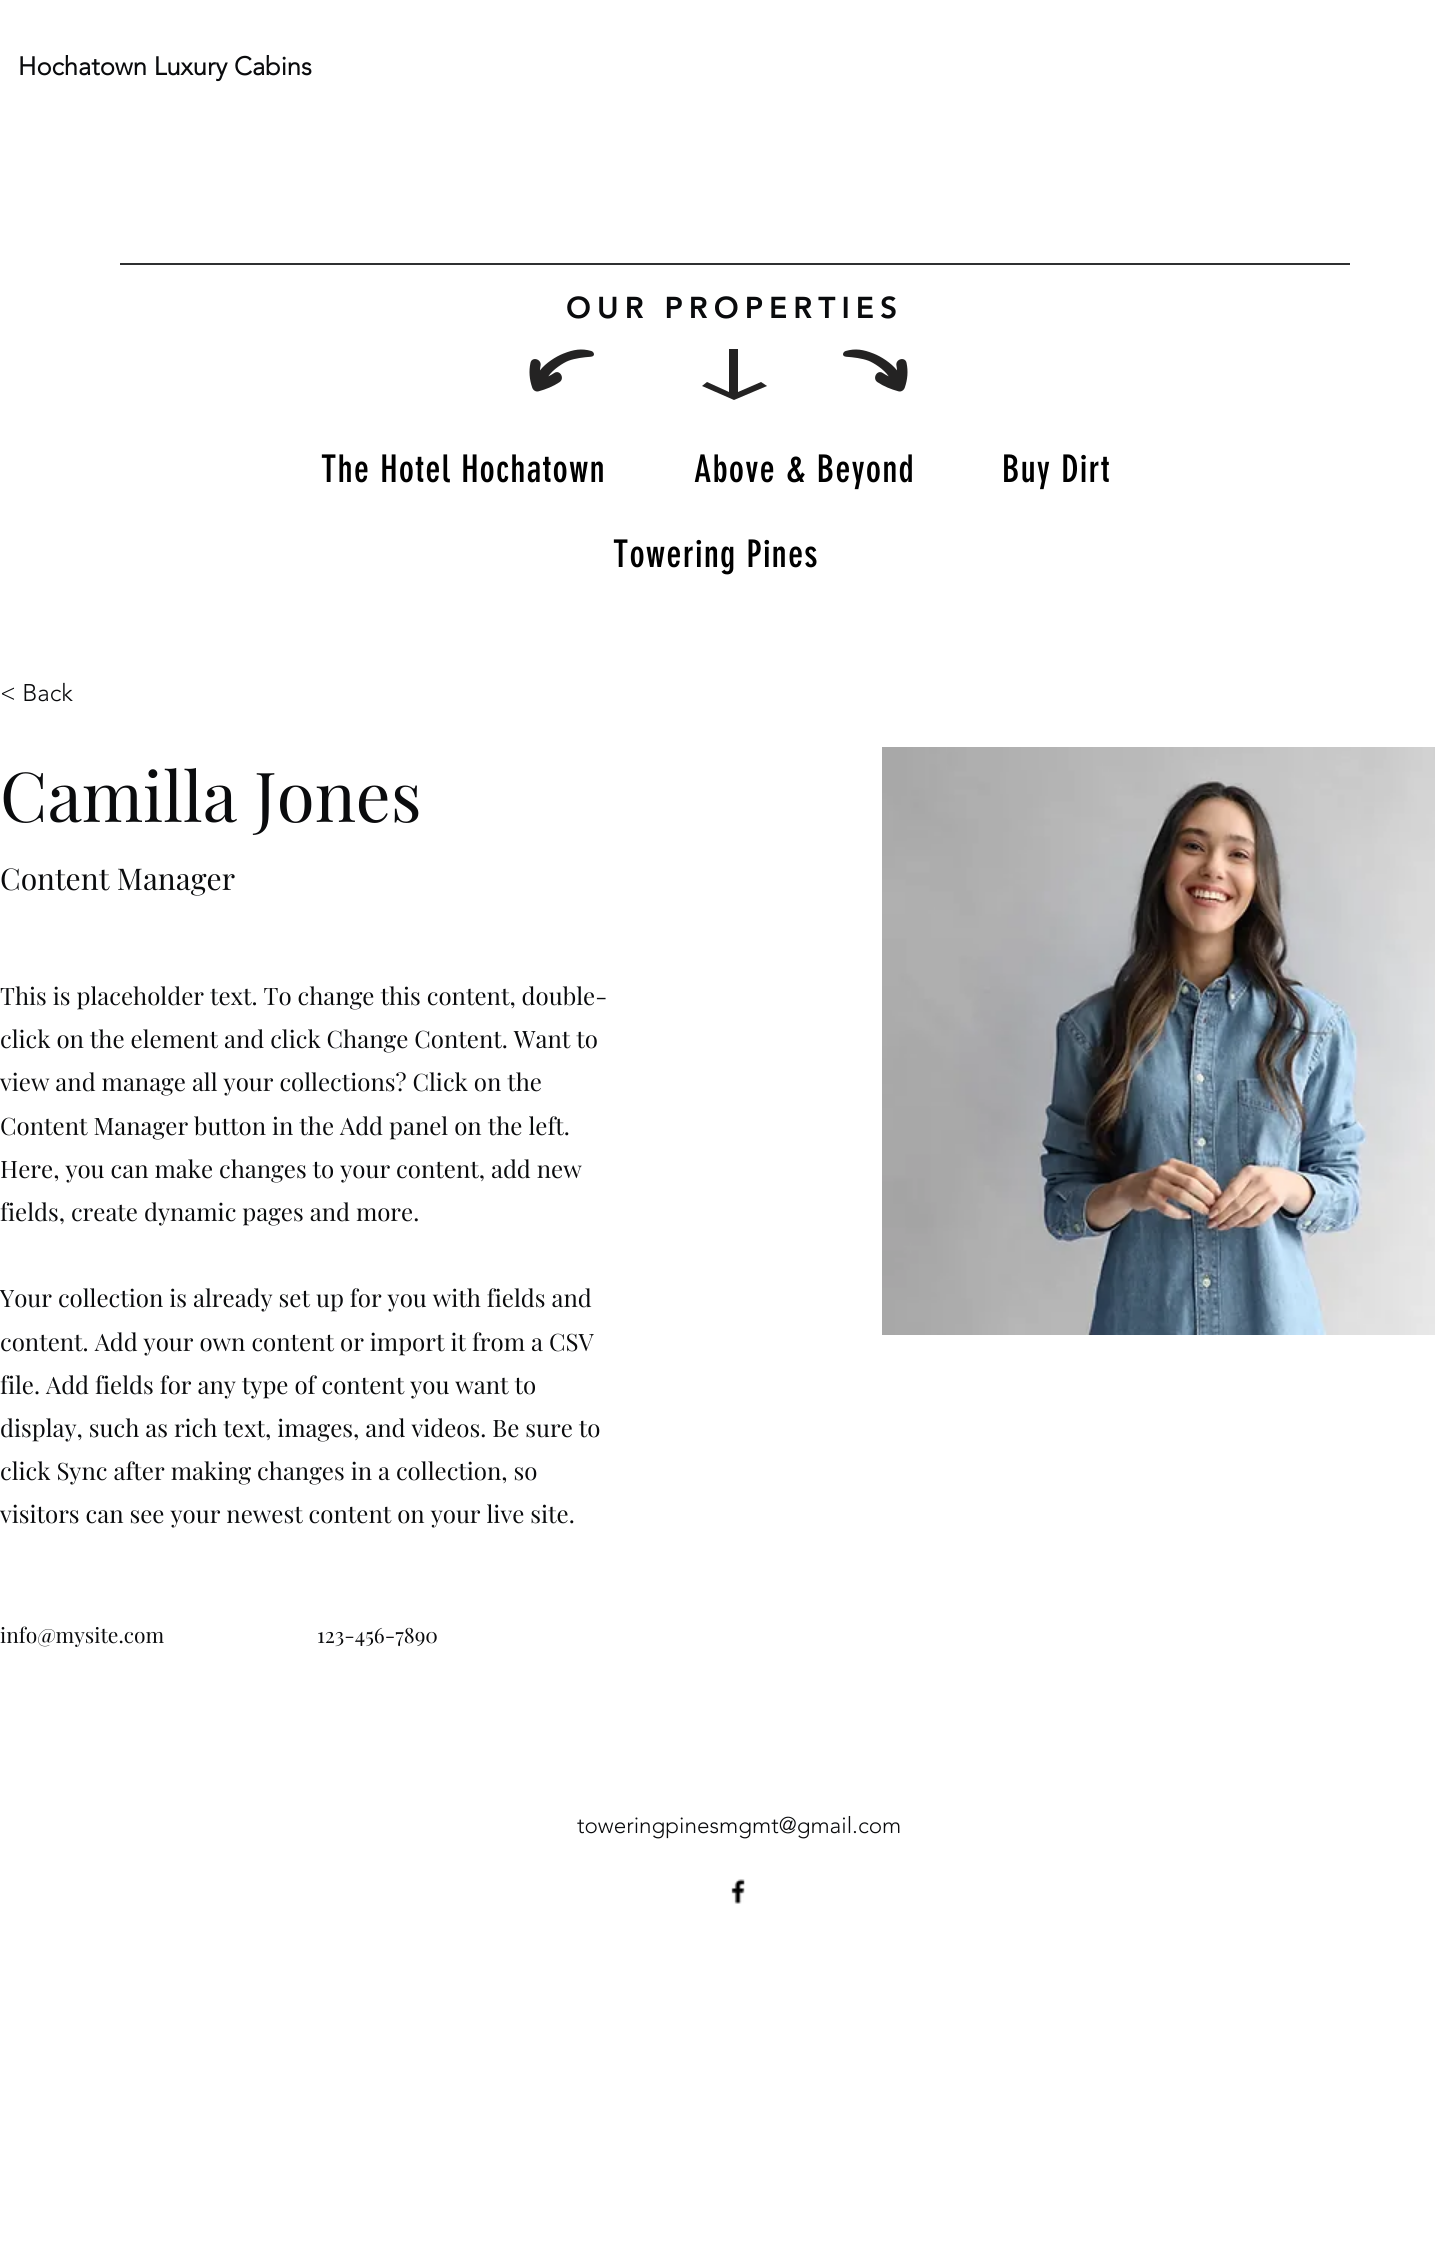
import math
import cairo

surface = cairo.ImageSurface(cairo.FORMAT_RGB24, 1435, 2253)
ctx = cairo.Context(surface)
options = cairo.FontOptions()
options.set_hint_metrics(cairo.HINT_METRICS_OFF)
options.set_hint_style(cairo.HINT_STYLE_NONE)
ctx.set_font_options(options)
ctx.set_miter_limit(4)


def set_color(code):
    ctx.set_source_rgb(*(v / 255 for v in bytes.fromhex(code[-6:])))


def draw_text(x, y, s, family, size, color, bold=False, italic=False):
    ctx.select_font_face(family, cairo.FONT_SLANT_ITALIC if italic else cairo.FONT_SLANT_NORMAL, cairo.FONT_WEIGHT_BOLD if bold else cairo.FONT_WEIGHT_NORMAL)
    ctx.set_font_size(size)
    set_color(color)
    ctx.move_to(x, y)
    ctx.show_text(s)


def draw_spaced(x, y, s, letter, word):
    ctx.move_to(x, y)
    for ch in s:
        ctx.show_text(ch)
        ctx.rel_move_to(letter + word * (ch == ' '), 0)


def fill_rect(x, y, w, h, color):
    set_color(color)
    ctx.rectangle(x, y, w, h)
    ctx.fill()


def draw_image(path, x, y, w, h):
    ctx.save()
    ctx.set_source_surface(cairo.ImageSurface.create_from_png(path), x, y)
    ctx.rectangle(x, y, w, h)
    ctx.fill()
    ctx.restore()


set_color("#ffffff")
ctx.paint()
draw_text(18, 75, "Hochatown Luxury Cabins", "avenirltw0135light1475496", 25.5, "#0a0b0d", bold=True)
fill_rect(120, 263, 1230, 2, "#2f3031")
ctx.select_font_face("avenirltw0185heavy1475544 Black")
ctx.set_font_size(30)
set_color("#0a0b0d")
draw_spaced(566, 318, "OUR PROPERTIES", 6, 0)
draw_image("assets/img1.png", 529, 349, 65, 43)
set_color("#242323")
ctx.new_path()
ctx.move_to(761, 382)
ctx.line_to(738, 392)
ctx.line_to(738, 349)
ctx.line_to(729, 349)
ctx.line_to(729, 392)
ctx.line_to(707, 382)
ctx.line_to(702, 386)
ctx.line_to(734, 400)
ctx.line_to(767, 386)
ctx.close_path()
ctx.fill()
draw_image("assets/img2.png", 843, 349, 65, 43)
ctx.select_font_face("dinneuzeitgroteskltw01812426")
ctx.set_font_size(37.5)
set_color("#000000")
draw_spaced(321, 482, "The Hotel Hochatown", 1.1, 0)
draw_spaced(694, 482, "Above & Beyond", 1.1, 0)
draw_spaced(1002, 482, "Buy Dirt", 1.1, 0)
draw_spaced(613, 567, "Towering Pines", 1.1, 0)
draw_text(0, 701, "< Back", "avenirltw0135light1475496 Light", 24, "#0a0b0d")
draw_text(0, 822, "Camilla Jones", "Playfair Display", 69, "#0a0b0d")
draw_text(0, 890, "Content Manager", "Playfair Display", 30, "#0a0b0d")
draw_text(0, 1005, "This is placeholder text. To change this content, double-", "Playfair Display", 24, "#0a0b0d")
draw_text(0, 1048, "click on the element and click Change Content. Want to", "Playfair Display", 24, "#0a0b0d")
draw_text(0, 1091, "view and manage all your collections? Click on the", "Playfair Display", 24, "#0a0b0d")
draw_text(0, 1135, "Content Manager button in the Add panel on the left.", "Playfair Display", 24, "#0a0b0d")
draw_text(0, 1178, "Here, you can make changes to your content, add new", "Playfair Display", 24, "#0a0b0d")
draw_text(0, 1221, "fields, create dynamic pages and more.", "Playfair Display", 24, "#0a0b0d")
draw_text(0, 1307, "Your collection is already set up for you with fields and", "Playfair Display", 24, "#0a0b0d")
draw_text(0, 1351, "content. Add your own content or import it from a CSV", "Playfair Display", 24, "#0a0b0d")
draw_text(0, 1394, "file. Add fields for any type of content you want to", "Playfair Display", 24, "#0a0b0d")
draw_text(0, 1437, "display, such as rich text, images, and videos. Be sure to", "Playfair Display", 24, "#0a0b0d")
draw_text(0, 1480, "click Sync after making changes in a collection, so", "Playfair Display", 24, "#0a0b0d")
draw_text(0, 1523, "visitors can see your newest content on your live site.", "Playfair Display", 24, "#0a0b0d")
draw_text(0, 1643, "info@mysite.com", "Playfair Display", 21, "#0a0b0d")
draw_text(317, 1643, "123-456-7890", "Playfair Display", 21, "#0a0b0d")
draw_image("assets/img3.png", 882, 747, 553, 588)
draw_text(577, 1833, "toweringpinesmgmt@gmail.com", "avenirltw0135light1475496 Light", 22.5, "#0a0b0d")
draw_image("assets/img4.png", 731, 1879, 14, 25)
surface.write_to_png("output.png")
